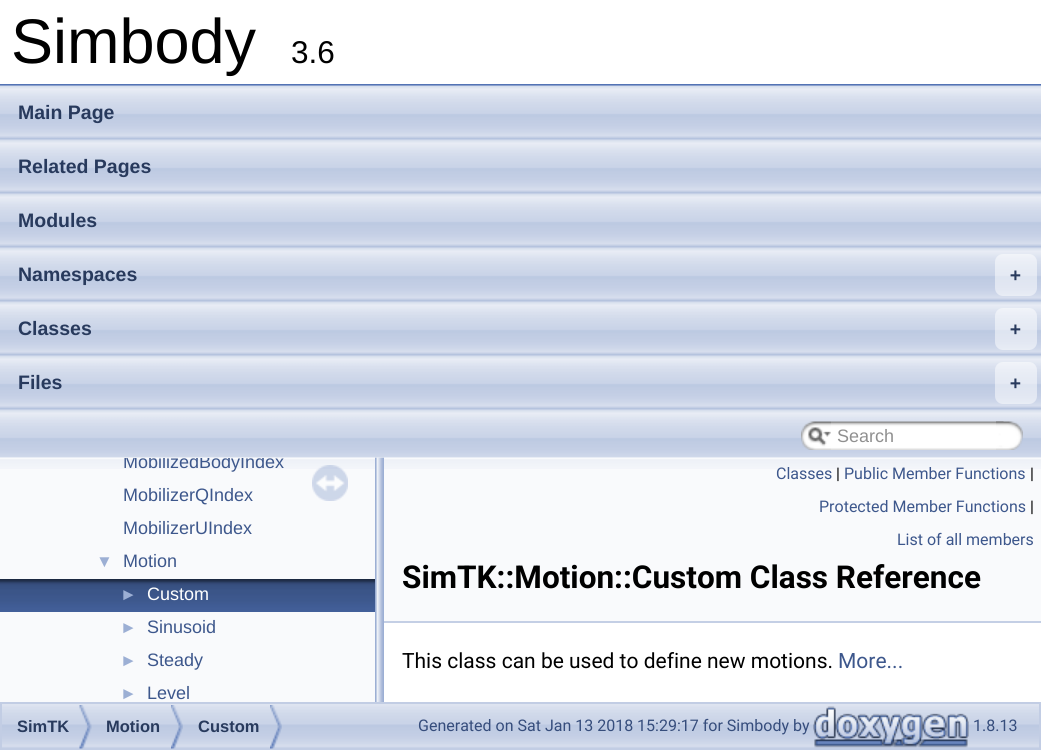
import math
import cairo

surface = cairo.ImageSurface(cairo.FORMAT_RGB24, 1041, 750)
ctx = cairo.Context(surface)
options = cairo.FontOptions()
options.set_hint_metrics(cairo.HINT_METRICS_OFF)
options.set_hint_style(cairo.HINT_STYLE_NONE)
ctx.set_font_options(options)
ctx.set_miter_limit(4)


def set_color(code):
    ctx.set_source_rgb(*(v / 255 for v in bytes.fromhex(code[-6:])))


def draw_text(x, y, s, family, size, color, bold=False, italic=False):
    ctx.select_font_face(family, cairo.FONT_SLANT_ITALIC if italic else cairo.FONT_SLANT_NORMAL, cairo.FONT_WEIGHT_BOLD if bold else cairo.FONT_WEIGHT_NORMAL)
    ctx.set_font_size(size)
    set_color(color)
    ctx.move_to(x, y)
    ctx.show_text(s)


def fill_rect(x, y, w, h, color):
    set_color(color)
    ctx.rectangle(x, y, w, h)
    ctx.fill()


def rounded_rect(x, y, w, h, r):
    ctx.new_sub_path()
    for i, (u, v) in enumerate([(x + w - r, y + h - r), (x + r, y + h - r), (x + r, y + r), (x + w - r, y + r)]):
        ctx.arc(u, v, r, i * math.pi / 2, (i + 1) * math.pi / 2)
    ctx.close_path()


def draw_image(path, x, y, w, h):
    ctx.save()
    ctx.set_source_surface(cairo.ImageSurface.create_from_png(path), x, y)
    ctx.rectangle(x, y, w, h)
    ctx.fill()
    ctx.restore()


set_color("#ffffff")
ctx.paint()
fill_rect(0, 84, 1041, 2, "#5373b4")
draw_text(11, 63, "Simbody", "Liberation Sans", 63, "#000000")
draw_text(291, 63, "3.6", "Liberation Sans", 31.5, "#000000")
draw_image("assets/img9.png", 375, 457, 9, 245)
draw_image("assets/img1.png", 0, 85, 1041, 373)
draw_text(18, 119, "Main Page", "Liberation Sans", 19.5, "#283a5d", bold=True)
draw_text(18, 173, "Related Pages", "Liberation Sans", 19.5, "#283a5d", bold=True)
draw_text(18, 227, "Modules", "Liberation Sans", 19.5, "#283a5d", bold=True)
draw_text(18, 281, "Namespaces", "Liberation Sans", 19.5, "#283a5d", bold=True)
ctx.set_source_rgba(1, 1, 1, 0.5)
rounded_rect(995, 254, 42, 42, 8)
ctx.fill()
draw_text(1010, 281, "+", "DejaVu Sans Mono", 18, "#283a5d", bold=True)
draw_text(18, 335, "Classes", "Liberation Sans", 19.5, "#283a5d", bold=True)
ctx.set_source_rgba(1, 1, 1, 0.5)
rounded_rect(995, 308, 42, 42, 8)
ctx.fill()
draw_text(1010, 335, "+", "DejaVu Sans Mono", 18, "#283a5d", bold=True)
draw_text(18, 389, "Files", "Liberation Sans", 19.5, "#283a5d", bold=True)
ctx.set_source_rgba(1, 1, 1, 0.5)
rounded_rect(995, 362, 42, 42, 8)
ctx.fill()
draw_text(1010, 389, "+", "DejaVu Sans Mono", 18, "#283a5d", bold=True)
draw_image("assets/img2.png", 801, 421, 30, 29)
draw_image("assets/img3.png", 808, 427, 23, 19)
draw_image("assets/img4.png", 831, 421, 173, 29)
draw_text(837, 442, "Search", "Liberation Sans", 18, "#909090")
draw_image("assets/img5.png", 996, 421, 27, 29)
fill_rect(0, 458, 375, 244, "#f9fafc")
draw_image("assets/img6.png", 0, 459, 375, 10)
ctx.save()
ctx.rectangle(0, 458, 375, 244)
ctx.clip()
draw_text(123, 468, "MobilizedBodyIndex", "Liberation Sans", 18, "#3d578c")
ctx.restore()
draw_text(123, 501, "MobilizerQIndex", "Liberation Sans", 18, "#3d578c")
draw_text(123, 534, "MobilizerUIndex", "Liberation Sans", 18, "#3d578c")
draw_text(96, 567, "▼", "Liberation Sans", 17, "#9cafd4")
draw_text(123, 567, "Motion", "Liberation Sans", 18, "#3d578c")
draw_image("assets/img7.png", 0, 579, 375, 33)
draw_text(120, 600, "►", "Liberation Sans", 17, "#9cafd4")
draw_text(147, 600, "Custom", "Liberation Sans", 18, "#ffffff")
draw_text(120, 633, "►", "Liberation Sans", 17, "#9cafd4")
draw_text(147, 633, "Sinusoid", "Liberation Sans", 18, "#3d578c")
draw_text(120, 666, "►", "Liberation Sans", 17, "#9cafd4")
draw_text(147, 666, "Steady", "Liberation Sans", 18, "#3d578c")
draw_text(120, 699, "►", "Liberation Sans", 17, "#9cafd4")
draw_text(147, 699, "Level", "Liberation Sans", 18, "#3d578c")
draw_image("assets/img8.png", 312, 465, 36, 36)
fill_rect(384, 458, 657, 163, "#f9fafc")
draw_image("assets/img10.png", 384, 459, 657, 10)
fill_rect(384, 621, 657, 2, "#c4cfe5")
draw_text(776, 479, "Classes", "Roboto", 16, "#3d578c")
draw_text(836, 479, "|", "Roboto", 16, "#000000")
draw_text(844, 479, "Public Member Functions", "Roboto", 16, "#3d578c")
draw_text(1030, 479, "|", "Roboto", 16, "#000000")
draw_text(819, 512, "Protected Member Functions", "Roboto", 16, "#3d578c")
draw_text(1030, 512, "|", "Roboto", 16, "#000000")
draw_text(897, 545, "List of all members", "Roboto", 16, "#3d578c")
draw_text(402, 588, "SimTK::Motion::Custom Class Reference", "Roboto", 31.5, "#000000", bold=True)
draw_text(402, 668, "This class can be used to define new motions.", "Roboto", 21, "#000000")
draw_text(838, 668, "More...", "Roboto", 21, "#3d578c")
draw_image("assets/img11.png", 2, 704, 1037, 44)
ctx.rectangle(1, 703, 1039, 46)
set_color("#c2cde4")
ctx.stroke()
draw_image("assets/img12.png", 79, 705, 13, 44)
draw_text(17, 732, "SimTK", "Liberation Sans", 16.5, "#283a5d", bold=True)
draw_image("assets/img13.png", 171, 705, 12, 44)
draw_text(106, 732, "Motion", "Liberation Sans", 16.5, "#283a5d", bold=True)
draw_image("assets/img14.png", 270, 705, 12, 44)
draw_text(198, 732, "Custom", "Liberation Sans", 16.5, "#283a5d", bold=True)
draw_text(418, 731, "Generated on Sat Jan 13 2018 15:29:17 for Simbody by", "Roboto", 16, "#364d7c")
draw_image("assets/img15.png", 813, 706, 156, 42)
draw_text(973, 731, "1.8.13", "Roboto", 16, "#364d7c")
surface.write_to_png("output.png")
